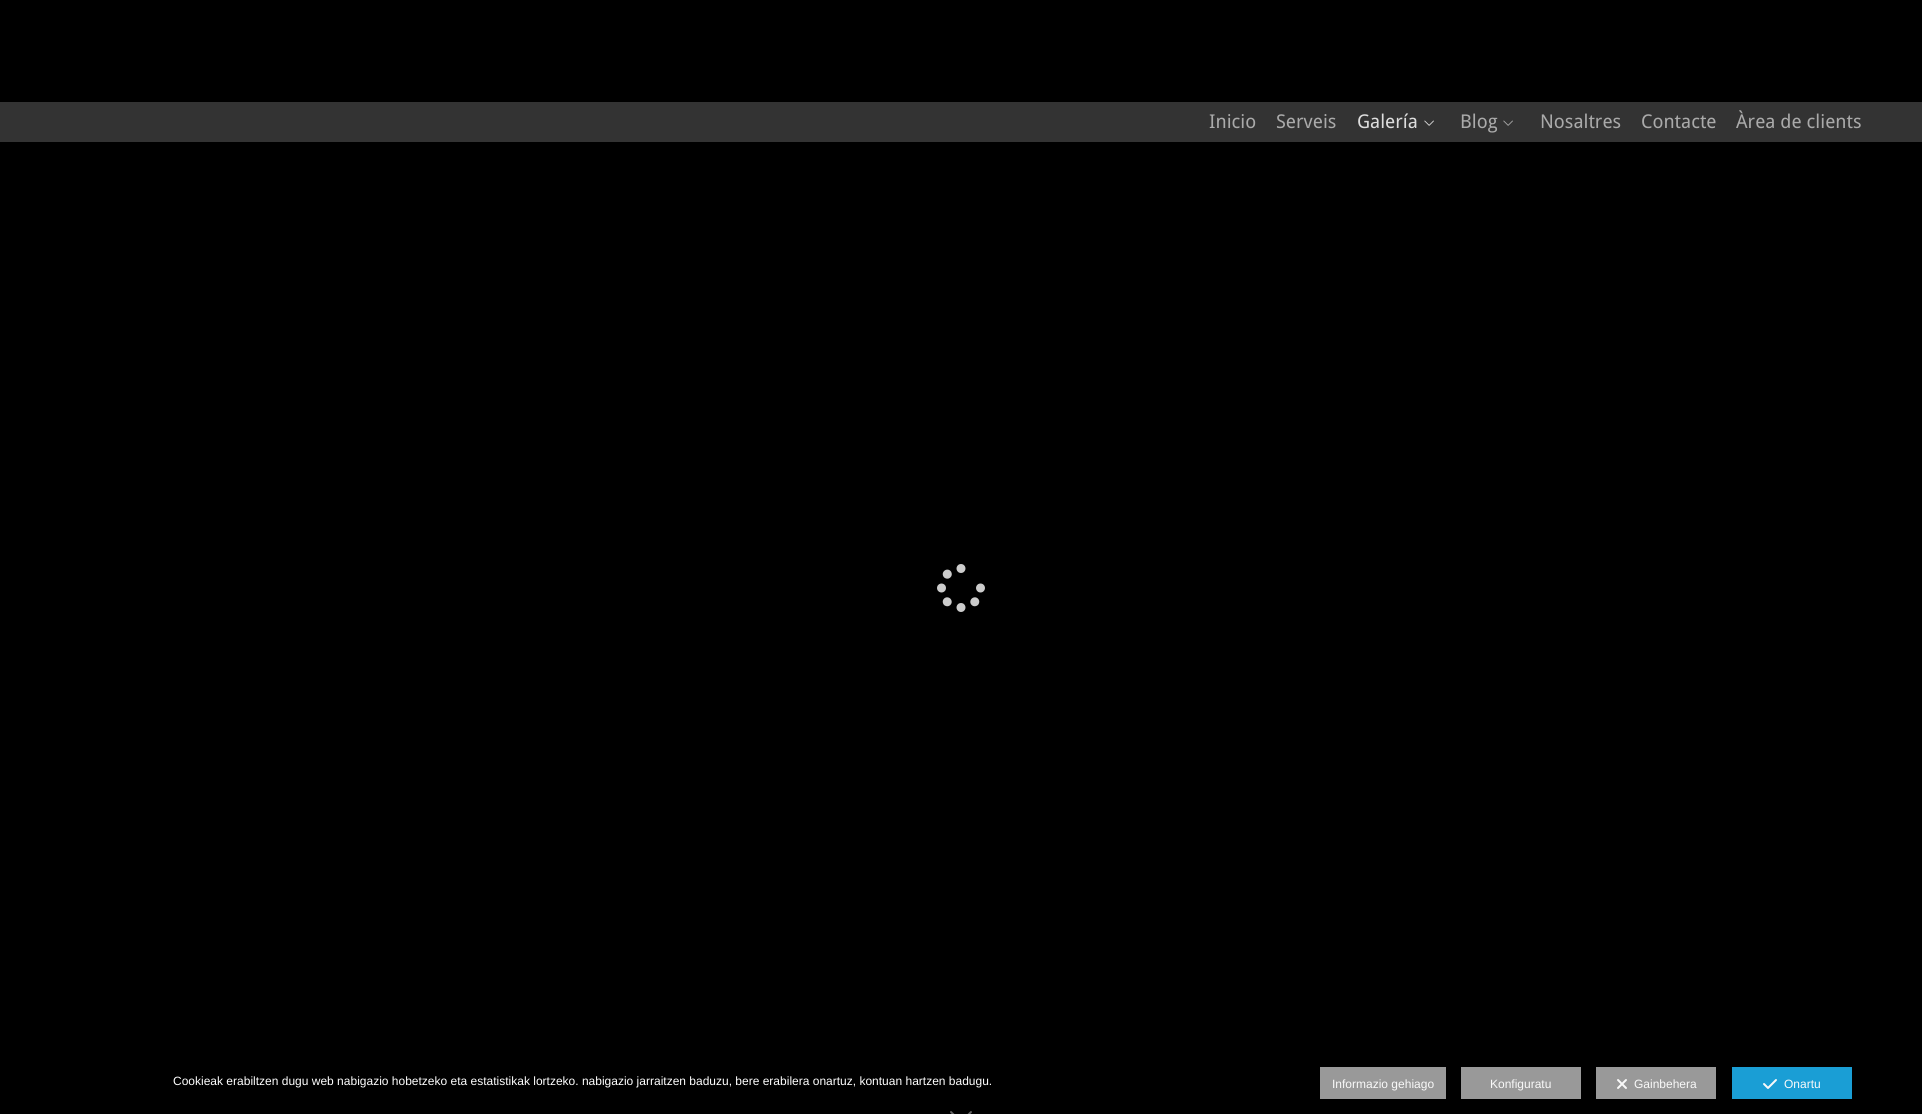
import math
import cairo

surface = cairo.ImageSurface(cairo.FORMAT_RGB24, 1922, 1114)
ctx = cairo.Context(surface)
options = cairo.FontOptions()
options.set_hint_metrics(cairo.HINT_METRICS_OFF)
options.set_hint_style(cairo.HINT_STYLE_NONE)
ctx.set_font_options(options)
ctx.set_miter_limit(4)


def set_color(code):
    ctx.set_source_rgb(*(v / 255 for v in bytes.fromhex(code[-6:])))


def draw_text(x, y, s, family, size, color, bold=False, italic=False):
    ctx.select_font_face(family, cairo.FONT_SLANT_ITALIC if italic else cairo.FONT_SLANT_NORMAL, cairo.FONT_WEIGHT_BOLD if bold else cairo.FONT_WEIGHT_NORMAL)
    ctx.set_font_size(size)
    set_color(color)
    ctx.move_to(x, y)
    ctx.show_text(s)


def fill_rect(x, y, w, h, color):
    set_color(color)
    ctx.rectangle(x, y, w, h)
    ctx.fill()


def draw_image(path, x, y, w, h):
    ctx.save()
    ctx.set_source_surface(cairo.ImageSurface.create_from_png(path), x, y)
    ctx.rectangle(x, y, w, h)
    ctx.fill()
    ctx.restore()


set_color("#000000")
ctx.paint()
fill_rect(0, 102, 1922, 40, "#333333")
draw_text(1209, 128, "Inicio", "Droid Sans", 19, "#aaaaaa")
draw_text(1276, 128, "Serveis", "Droid Sans", 19, "#aaaaaa")
draw_text(1357, 128, "Galería", "Droid Sans", 19, "#dddddd")
draw_image("assets/img1.png", 1424, 120, 10, 6)
draw_text(1460, 128, "Blog", "Droid Sans", 19, "#aaaaaa")
draw_image("assets/img2.png", 1503, 120, 10, 6)
draw_text(1540, 128, "Nosaltres", "Droid Sans", 19, "#aaaaaa")
draw_text(1641, 128, "Contacte", "Droid Sans", 19, "#aaaaaa")
draw_text(1736, 128, "Àrea de clients", "Droid Sans", 19, "#aaaaaa")
draw_image("assets/img3.png", 937, 564, 48, 48)
draw_image("assets/img4.png", 950, 1111, 22, 3)
draw_text(173, 1085, "Cookieak erabiltzen dugu web nabigazio hobetzeko eta estatistikak lortzeko. nabigazio jarraitzen baduzu, bere erabilera onartuz, kontuan hartzen badugu.", "Liberation Sans", 12, "#ffffff")
fill_rect(1320, 1067, 126, 32, "#999999")
draw_text(1332, 1088, "Informazio gehiago", "Liberation Sans", 12, "#f9f9f9")
fill_rect(1461, 1067, 120, 32, "#999999")
draw_text(1490, 1088, "Konfiguratu", "Liberation Sans", 12, "#f9f9f9")
fill_rect(1596, 1067, 120, 32, "#999999")
draw_image("assets/img5.png", 1617, 1079, 10, 10)
draw_text(1634, 1088, "Gainbehera", "Liberation Sans", 12, "#f9f9f9")
fill_rect(1732, 1067, 120, 32, "#1a9ed5")
draw_image("assets/img6.png", 1763, 1079, 14, 10)
draw_text(1784, 1088, "Onartu", "Liberation Sans", 12, "#f9f9f9")
surface.write_to_png("output.png")
